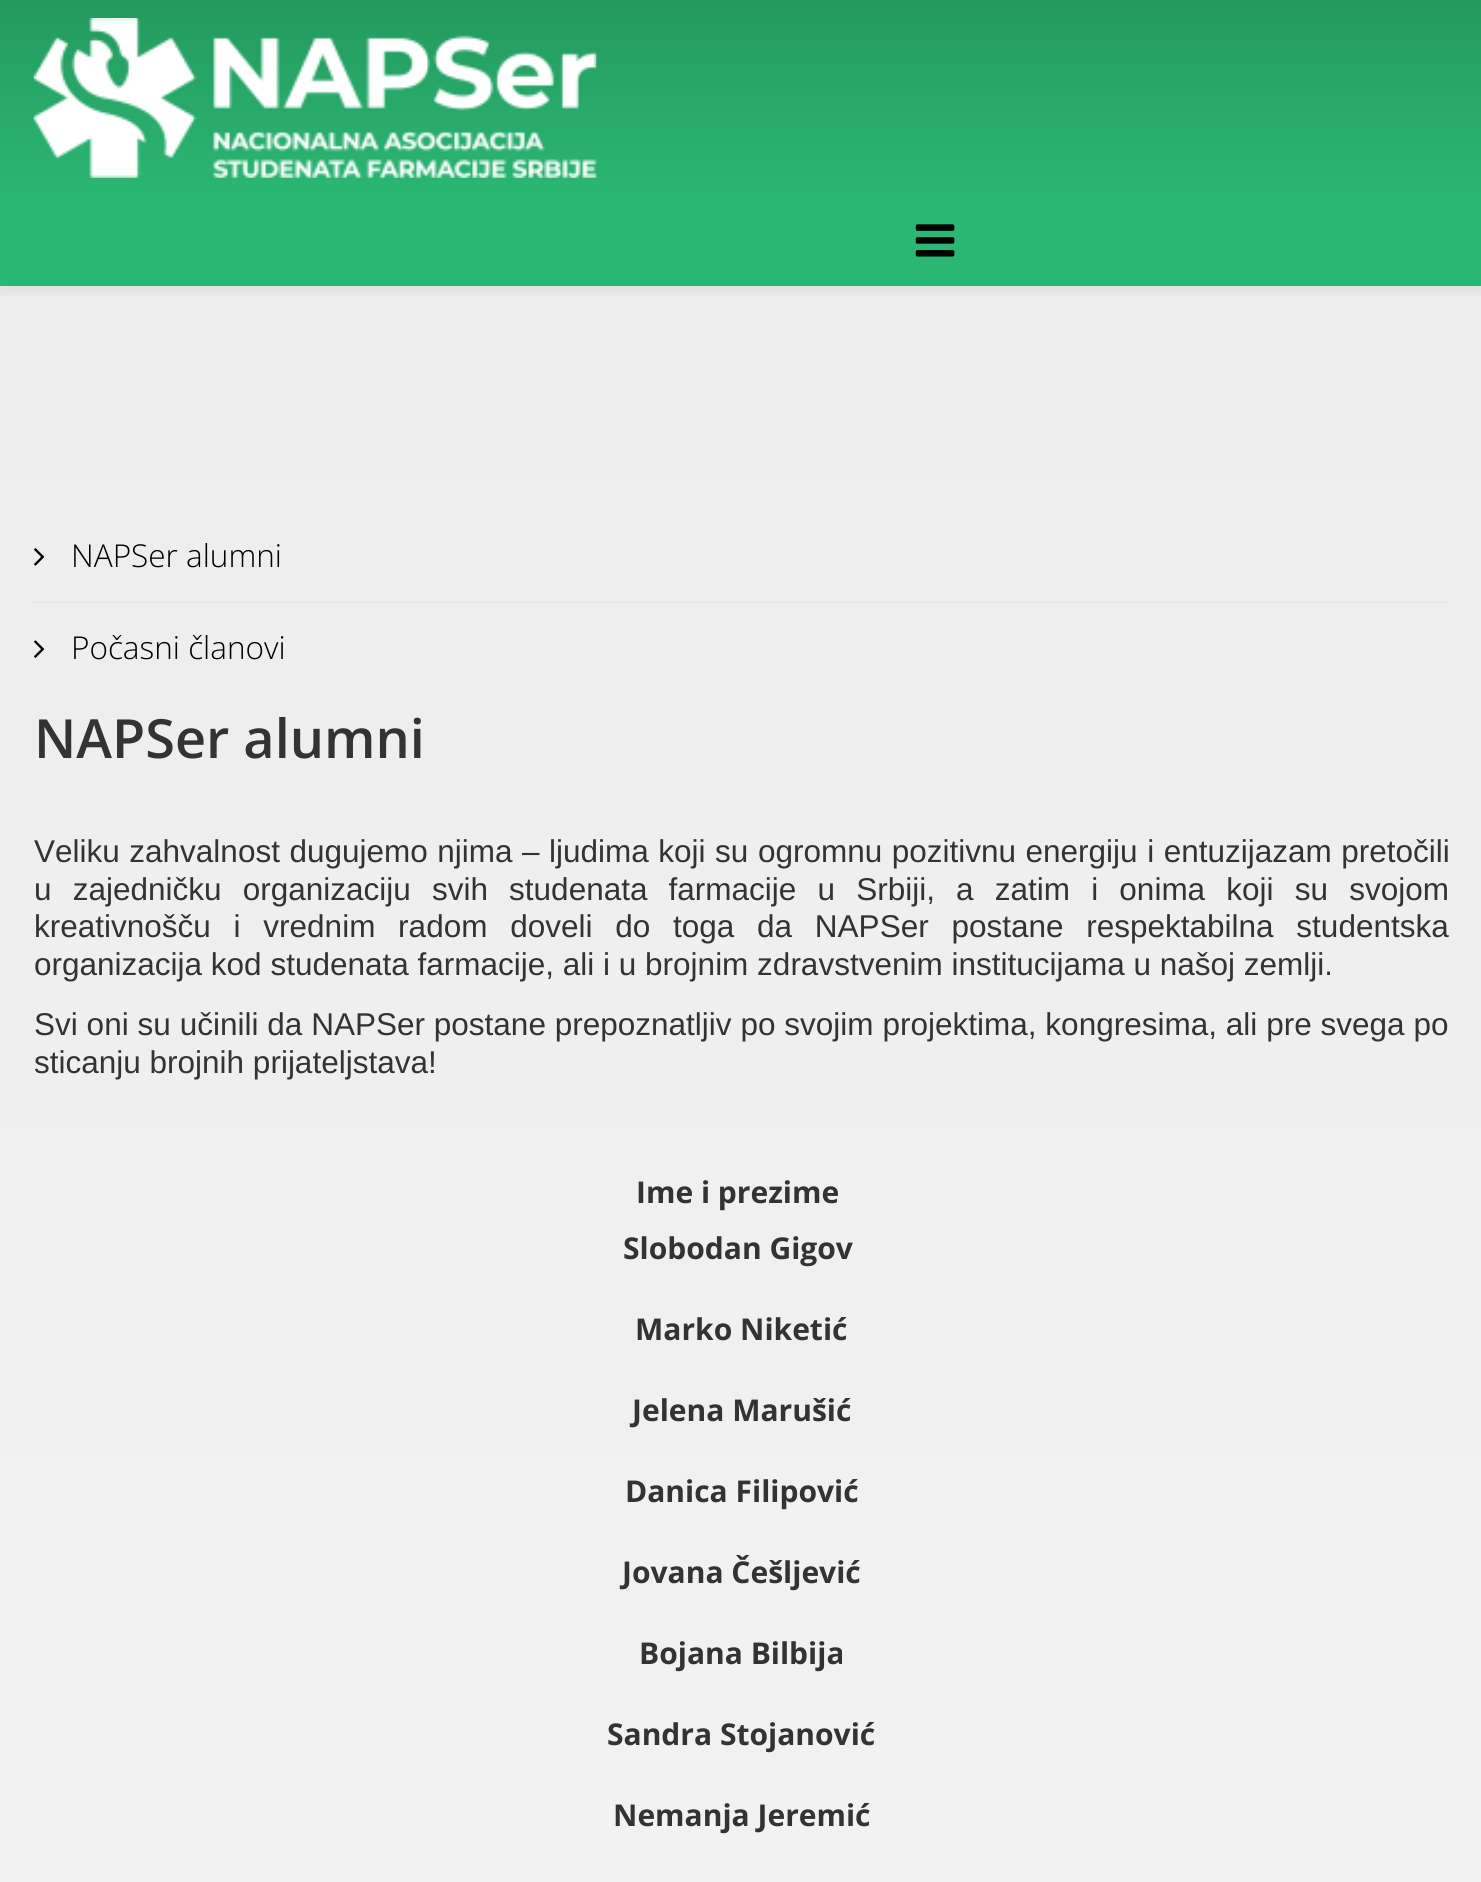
import math
import cairo

surface = cairo.ImageSurface(cairo.FORMAT_RGB24, 1481, 1882)
ctx = cairo.Context(surface)
options = cairo.FontOptions()
options.set_hint_metrics(cairo.HINT_METRICS_OFF)
options.set_hint_style(cairo.HINT_STYLE_NONE)
ctx.set_font_options(options)
ctx.set_miter_limit(4)


def set_color(code):
    ctx.set_source_rgb(*(v / 255 for v in bytes.fromhex(code[-6:])))


def draw_text(x, y, s, family, size, color, bold=False, italic=False):
    ctx.select_font_face(family, cairo.FONT_SLANT_ITALIC if italic else cairo.FONT_SLANT_NORMAL, cairo.FONT_WEIGHT_BOLD if bold else cairo.FONT_WEIGHT_NORMAL)
    ctx.set_font_size(size)
    set_color(color)
    ctx.move_to(x, y)
    ctx.show_text(s)


def draw_spaced(x, y, s, letter, word):
    ctx.move_to(x, y)
    for ch in s:
        ctx.show_text(ch)
        ctx.rel_move_to(letter + word * (ch == ' '), 0)


def fill_rect(x, y, w, h, color):
    set_color(color)
    ctx.rectangle(x, y, w, h)
    ctx.fill()


def rounded_rect(x, y, w, h, r):
    ctx.new_sub_path()
    for i, (u, v) in enumerate([(x + w - r, y + h - r), (x + r, y + h - r), (x + r, y + r), (x + w - r, y + r)]):
        ctx.arc(u, v, r, i * math.pi / 2, (i + 1) * math.pi / 2)
    ctx.close_path()


def draw_shadow(x, y, w, h, r, blur, alpha):
    ctx.push_group_with_content(cairo.CONTENT_ALPHA)
    ctx.set_operator(cairo.OPERATOR_SOURCE)
    for i in range(15, -16, -2):
        e = blur * i / 6
        if min(w, h) + 2 * e > 0:
            ctx.set_source_rgba(0, 0, 0, alpha * math.erfc((i - 1) / 8.5) / 2)
            rounded_rect(x - e, y - e, w + 2 * e, h + 2 * e, max(0, min(r + e + blur * .6, min(w, h) / 2 + e)))
            ctx.fill()
    ctx.mask(ctx.pop_group())


def draw_image(path, x, y, w, h):
    ctx.save()
    ctx.set_source_surface(cairo.ImageSurface.create_from_png(path), x, y)
    ctx.rectangle(x, y, w, h)
    ctx.fill()
    ctx.restore()


set_color("#ffffff")
ctx.paint()
gradient = cairo.LinearGradient(741, 0, 741, 196)
gradient.add_color_stop_rgba(0, 0.141, 0.6, 0.369, 1)
gradient.add_color_stop_rgba(1, 0.169, 0.714, 0.451, 1)
ctx.set_source(gradient)
ctx.rectangle(0, 0, 1481, 196)
ctx.fill()
draw_image("assets/img1.png", 33, 18, 564, 160)
gradient = cairo.LinearGradient(741, 286, 741, 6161)
gradient.add_color_stop_rgba(0, 0.929, 0.929, 0.929, 1)
gradient.add_color_stop_rgba(1, 1, 1, 1, 1)
ctx.set_source(gradient)
ctx.rectangle(0, 286, 1481, 1596)
ctx.fill()
set_color("#000000")
draw_shadow(0, 203, 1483, 90, 0, 3.5, 0.05)
fill_rect(0, 196, 1481, 90, "#2bb673")
draw_image("assets/img2.png", 915, 224, 40, 33)
fill_rect(34, 601, 1415, 2, "#e8e8e8")
draw_image("assets/img3.png", 34, 548, 11, 18)
draw_text(71, 567, "NAPSer alumni", "Open Sans Light", 31.5, "#000000")
draw_image("assets/img4.png", 34, 640, 11, 18)
draw_text(71, 659, "Počasni članovi", "Open Sans Light", 31.5, "#000000")
draw_text(34, 758, "NAPSer alumni", "Open Sans SemiBold", 54, "#333333")
ctx.select_font_face("Liberation Sans")
ctx.set_font_size(31.5)
draw_spaced(34, 862, "Veliku zahvalnost dugujemo njima – ljudima koji su ogromnu pozitivnu energiju i entuzijazam pretočili", 0, 0.75)
draw_spaced(34, 900, "u zajedničku organizaciju svih studenata farmacije u Srbiji, a zatim i onima koji su svojom", 0, 12.4)
draw_spaced(34, 937, "kreativnošču i vrednim radom doveli do toga da NAPSer postane respektabilna studentska", 0, 14)
draw_text(34, 975, "organizacija kod studenata farmacije, ali i u brojnim zdravstvenim institucijama u našoj zemlji.", "Liberation Sans", 31.5, "#333333")
draw_spaced(34, 1035, "Svi oni su učinili da NAPSer postane prepoznatljiv po svojim projektima, kongresima, ali pre svega po", 0, 0.1)
draw_text(34, 1073, "sticanju brojnih prijateljstava!", "Liberation Sans", 31.5, "#333333")
draw_text(636, 1203, "Ime i prezime", "Open Sans", 30, "#333333", bold=True)
draw_text(623, 1259, "Slobodan Gigov", "Open Sans", 30, "#333333", bold=True)
draw_text(635, 1340, "Marko Niketić", "Open Sans", 30, "#333333", bold=True)
draw_text(632, 1421, "Jelena Marušić", "Open Sans", 30, "#333333", bold=True)
draw_text(625, 1502, "Danica Filipović", "Open Sans", 30, "#333333", bold=True)
draw_text(622, 1583, "Jovana Češljević", "Open Sans", 30, "#333333", bold=True)
draw_text(639, 1664, "Bojana Bilbija", "Open Sans", 30, "#333333", bold=True)
draw_text(607, 1745, "Sandra Stojanović", "Open Sans", 30, "#333333", bold=True)
draw_text(613, 1826, "Nemanja Jeremić", "Open Sans", 30, "#333333", bold=True)
surface.write_to_png("output.png")
